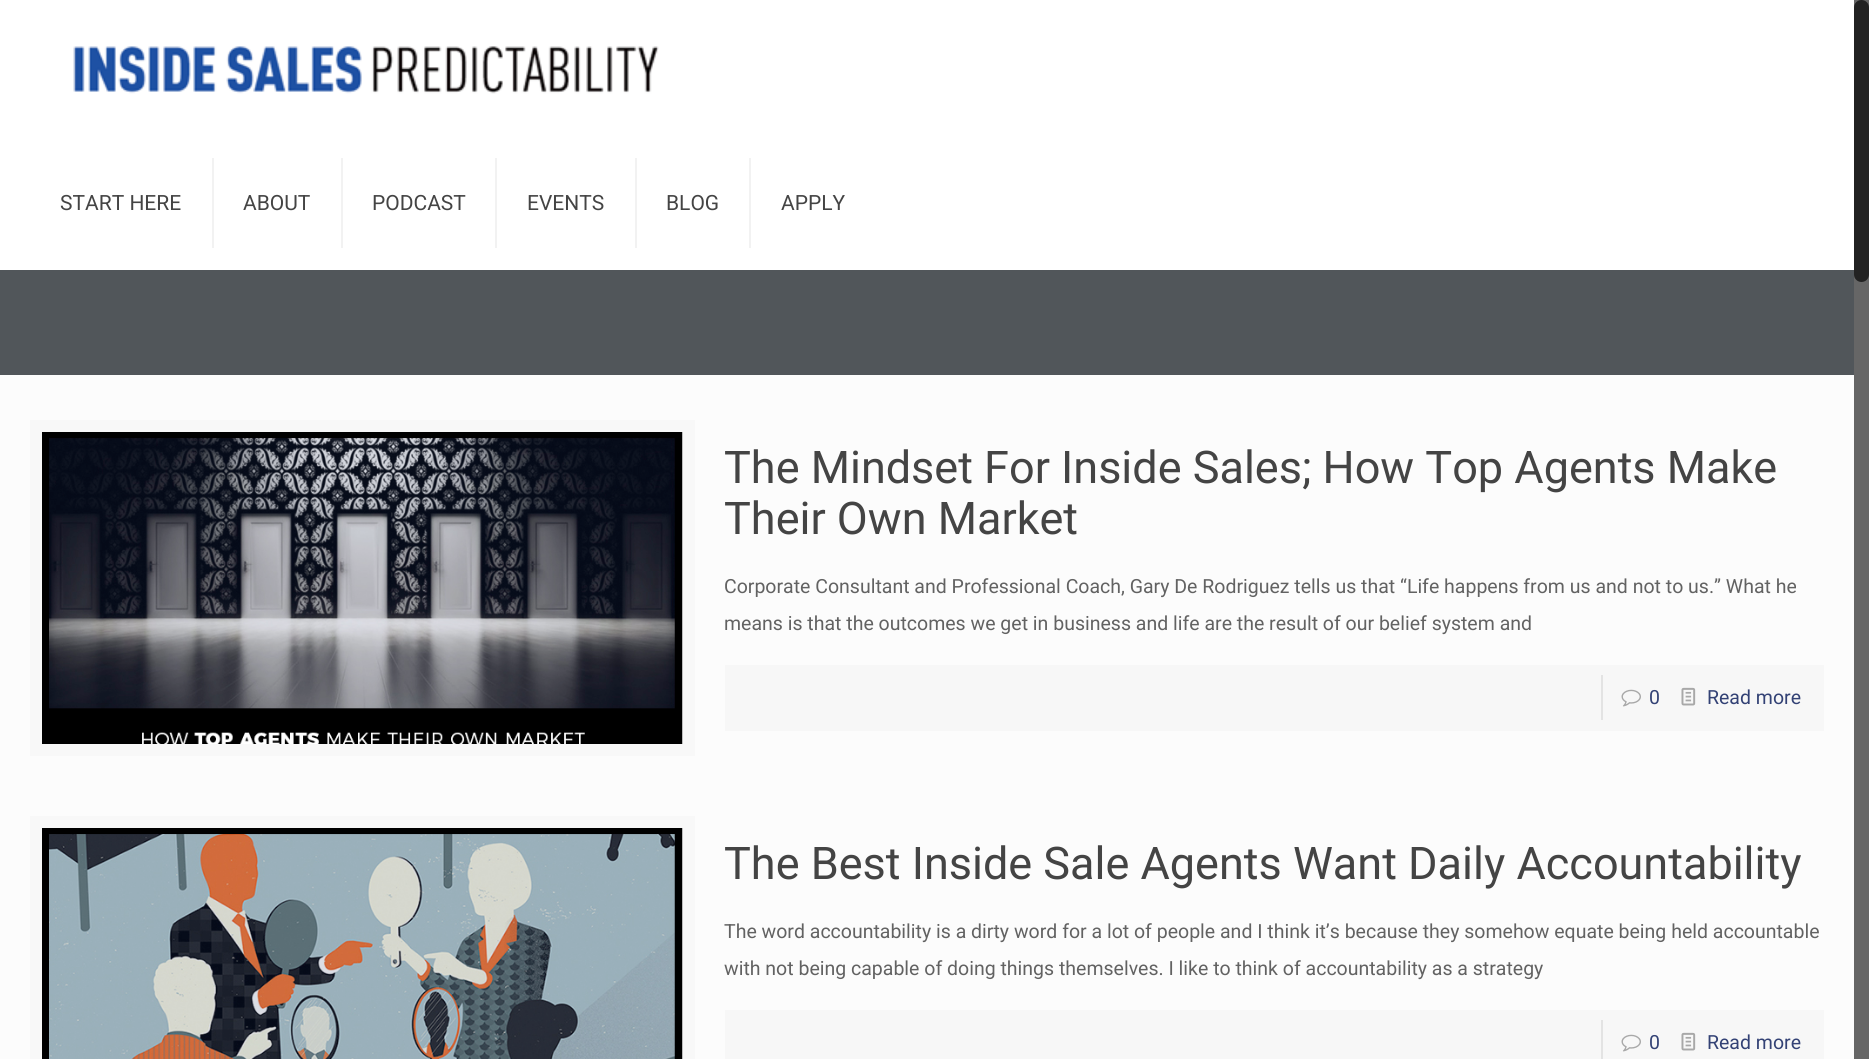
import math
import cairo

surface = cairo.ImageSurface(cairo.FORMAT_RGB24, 1869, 1059)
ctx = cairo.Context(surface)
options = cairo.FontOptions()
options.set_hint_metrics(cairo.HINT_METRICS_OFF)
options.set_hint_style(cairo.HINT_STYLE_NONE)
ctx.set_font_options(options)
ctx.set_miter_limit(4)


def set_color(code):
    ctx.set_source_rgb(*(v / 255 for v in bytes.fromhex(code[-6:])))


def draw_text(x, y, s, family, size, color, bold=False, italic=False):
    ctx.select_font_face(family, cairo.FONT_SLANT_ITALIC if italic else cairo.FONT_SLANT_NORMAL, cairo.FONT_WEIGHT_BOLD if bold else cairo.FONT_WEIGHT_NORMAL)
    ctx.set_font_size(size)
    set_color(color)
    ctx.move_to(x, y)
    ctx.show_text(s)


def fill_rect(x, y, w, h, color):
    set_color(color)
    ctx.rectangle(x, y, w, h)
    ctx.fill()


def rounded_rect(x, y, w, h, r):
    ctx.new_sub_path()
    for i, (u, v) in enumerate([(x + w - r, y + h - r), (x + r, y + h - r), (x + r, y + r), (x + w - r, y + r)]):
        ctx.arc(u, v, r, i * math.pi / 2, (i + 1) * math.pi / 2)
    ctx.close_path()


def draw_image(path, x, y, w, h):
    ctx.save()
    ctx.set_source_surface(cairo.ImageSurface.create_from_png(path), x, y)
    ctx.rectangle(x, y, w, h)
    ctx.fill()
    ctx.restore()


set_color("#fcfcfc")
ctx.paint()
fill_rect(0, 270, 1854, 105, "#51565a")
fill_rect(0, 0, 1854, 270, "#ffffff")
draw_image("assets/img1.png", 73, 46, 586, 48)
fill_rect(212, 158, 2, 90, "#f2f2f2")
draw_text(60, 210, "START HERE", "Roboto", 21, "#444444")
fill_rect(341, 158, 2, 90, "#f2f2f2")
draw_text(243, 210, "ABOUT", "Roboto", 21, "#444444")
fill_rect(495, 158, 2, 90, "#f2f2f2")
draw_text(372, 210, "PODCAST", "Roboto", 21, "#444444")
fill_rect(635, 158, 2, 90, "#f2f2f2")
draw_text(527, 210, "EVENTS", "Roboto", 21, "#444444")
fill_rect(749, 158, 2, 90, "#f2f2f2")
draw_text(666, 210, "BLOG", "Roboto", 21, "#444444")
draw_text(781, 210, "APPLY", "Roboto", 21, "#444444")
ctx.rectangle(36, 426, 653, 324)
set_color("#f8f8f8")
ctx.set_line_width(12)
ctx.stroke()
draw_image("assets/img2.png", 42, 432, 641, 312)
draw_text(724, 483, "The Mindset For Inside Sales; How Top Agents Make", "Roboto", 45, "#444444")
draw_text(724, 534, "Their Own Market", "Roboto", 45, "#444444")
draw_text(724, 593, "Corporate Consultant and Professional Coach, Gary De Rodriguez tells us that “Life happens from us and not to us.” What he", "Roboto", 19.5, "#626262")
draw_text(724, 630, "means is that the outcomes we get in business and life are the result of our belief system and", "Roboto", 19.5, "#626262")
fill_rect(725, 665, 1099, 66, "#f7f7f7")
fill_rect(1601, 675, 2, 45, "#e3e3e3")
draw_image("assets/img3.png", 1621, 689, 20, 18)
draw_text(1649, 704, "0", "Roboto", 19.5, "#334275")
draw_image("assets/img4.png", 1681, 687, 15, 19)
draw_text(1707, 704, "Read more", "Roboto", 19.5, "#334275")
ctx.rectangle(36, 822, 653, 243)
set_color("#f8f8f8")
ctx.stroke()
draw_image("assets/img5.png", 42, 828, 641, 231)
draw_text(724, 879, "The Best Inside Sale Agents Want Daily Accountability", "Roboto", 45, "#444444")
draw_text(724, 938, "The word accountability is a dirty word for a lot of people and I think it’s because they somehow equate being held accountable", "Roboto", 19.5, "#626262")
draw_text(724, 975, "with not being capable of doing things themselves. I like to think of accountability as a strategy", "Roboto", 19.5, "#626262")
fill_rect(725, 1010, 1099, 49, "#f7f7f7")
fill_rect(1601, 1020, 2, 39, "#e3e3e3")
draw_image("assets/img3.png", 1621, 1034, 20, 18)
draw_text(1649, 1049, "0", "Roboto", 19.5, "#334275")
draw_image("assets/img4.png", 1681, 1032, 15, 19)
draw_text(1707, 1049, "Read more", "Roboto", 19.5, "#334275")
fill_rect(1854, 0, 15, 1059, "#666666")
set_color("#222222")
rounded_rect(1854, 0, 15, 282, 7.5)
ctx.fill()
surface.write_to_png("output.png")
